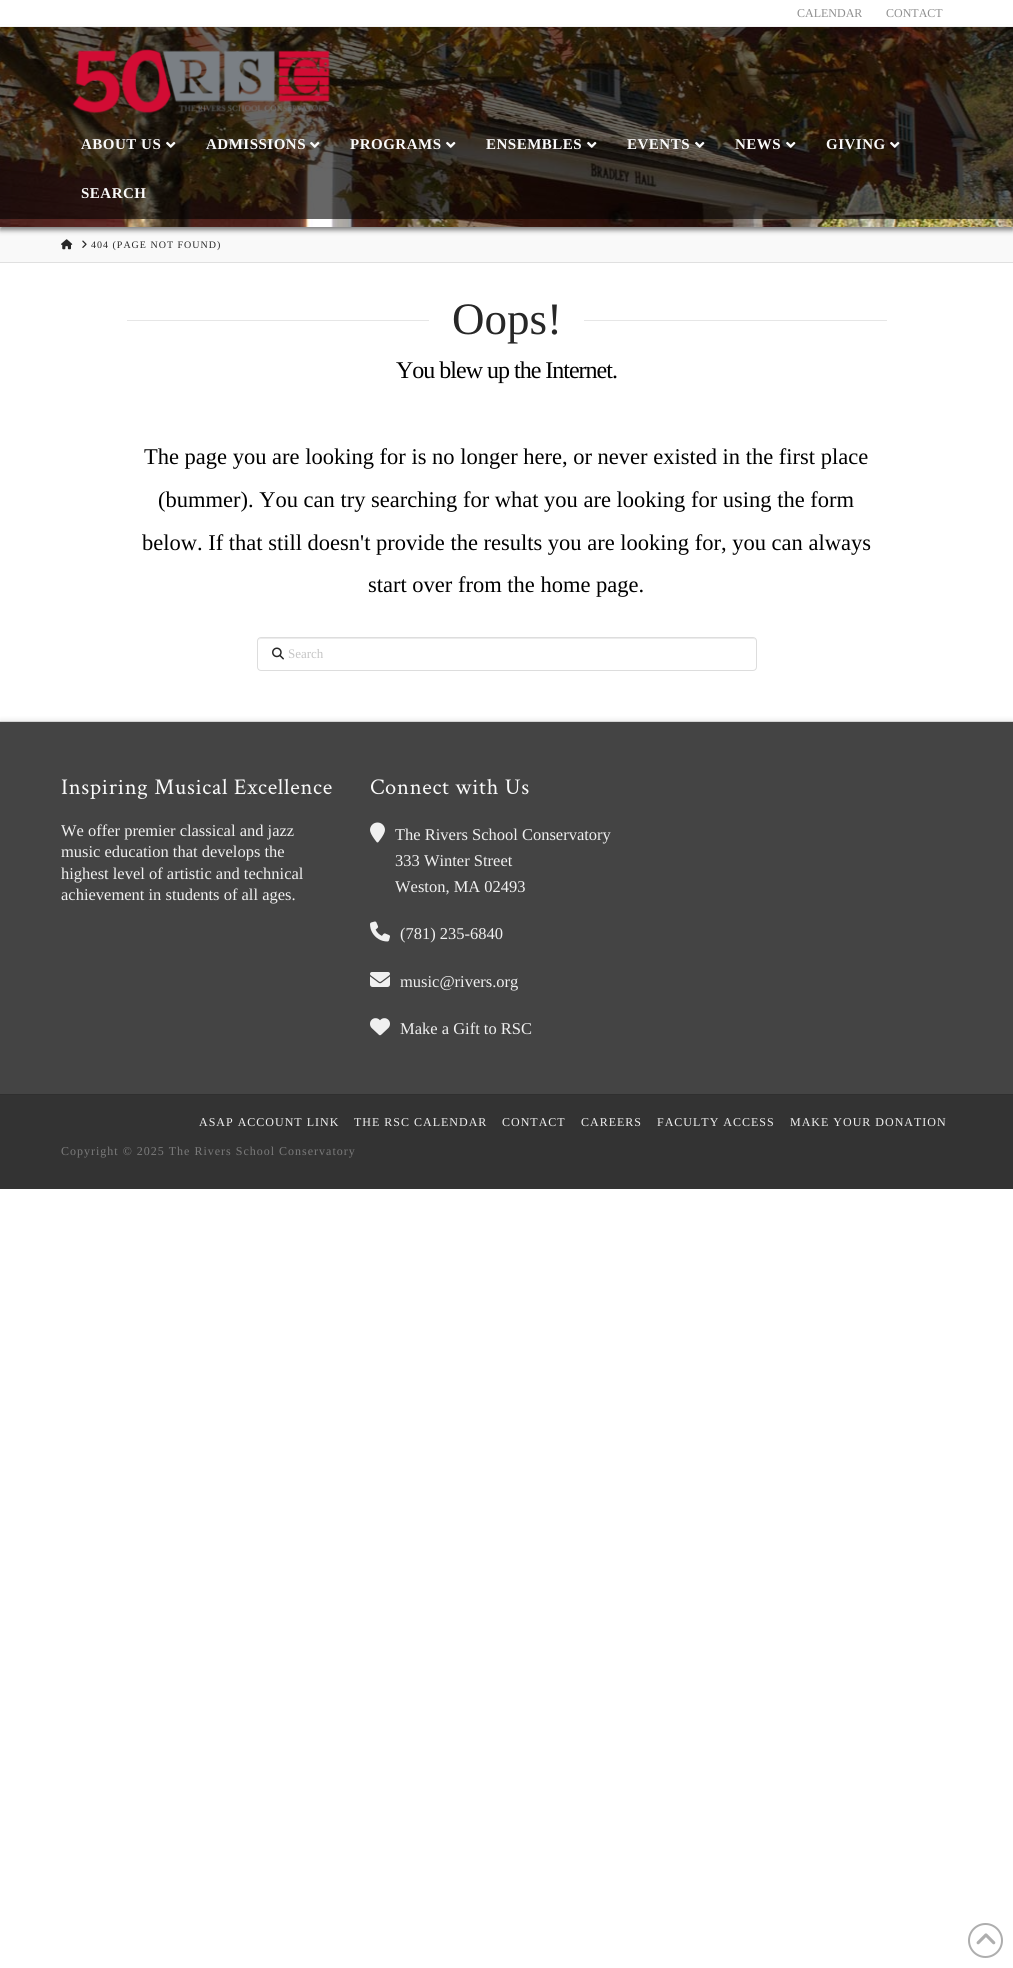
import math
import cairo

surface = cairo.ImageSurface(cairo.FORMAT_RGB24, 1013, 1968)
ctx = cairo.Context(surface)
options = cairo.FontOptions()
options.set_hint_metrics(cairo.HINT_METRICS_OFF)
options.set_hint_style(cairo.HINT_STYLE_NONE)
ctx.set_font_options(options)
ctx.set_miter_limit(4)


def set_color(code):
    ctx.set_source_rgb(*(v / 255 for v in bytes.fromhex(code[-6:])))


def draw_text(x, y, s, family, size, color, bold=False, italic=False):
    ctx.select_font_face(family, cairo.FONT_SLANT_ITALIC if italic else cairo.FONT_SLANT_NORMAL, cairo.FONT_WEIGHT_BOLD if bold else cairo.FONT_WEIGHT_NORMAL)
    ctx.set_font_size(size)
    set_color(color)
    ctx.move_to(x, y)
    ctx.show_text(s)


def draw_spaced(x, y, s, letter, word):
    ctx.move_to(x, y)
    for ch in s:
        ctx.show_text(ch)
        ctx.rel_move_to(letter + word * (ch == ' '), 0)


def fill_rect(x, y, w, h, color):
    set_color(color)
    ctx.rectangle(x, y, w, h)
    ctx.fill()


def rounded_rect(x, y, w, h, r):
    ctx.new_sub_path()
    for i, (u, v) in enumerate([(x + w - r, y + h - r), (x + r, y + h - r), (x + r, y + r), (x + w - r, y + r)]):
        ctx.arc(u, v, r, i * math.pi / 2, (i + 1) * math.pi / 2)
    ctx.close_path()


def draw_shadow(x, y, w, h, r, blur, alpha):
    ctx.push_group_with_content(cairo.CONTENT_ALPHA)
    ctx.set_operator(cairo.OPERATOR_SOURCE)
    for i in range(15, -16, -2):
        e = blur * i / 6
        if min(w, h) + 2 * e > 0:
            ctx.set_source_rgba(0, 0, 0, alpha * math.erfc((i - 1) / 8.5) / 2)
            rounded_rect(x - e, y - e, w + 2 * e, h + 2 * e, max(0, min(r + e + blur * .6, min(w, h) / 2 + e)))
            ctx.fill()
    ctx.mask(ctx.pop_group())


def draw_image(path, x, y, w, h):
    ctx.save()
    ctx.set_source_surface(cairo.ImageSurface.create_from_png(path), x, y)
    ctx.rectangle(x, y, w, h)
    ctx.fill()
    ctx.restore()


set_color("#ffffff")
ctx.paint()
fill_rect(0, 227, 1013, 35, "#f9f9f9")
set_color("#000000")
draw_shadow(0, 30, 1013, 200, 0, 2.5, 0.5)
fill_rect(0, 25, 1013, 1, "#ffffff")
fill_rect(0, 26, 1013, 1, "#f2f2f2")
draw_text(797, 17, "CALENDAR", "Liberation Serif", 12, "#8f8f8f")
draw_text(886, 17, "CONTACT", "Liberation Serif", 12, "#8f8f8f")
draw_image("assets/img1.png", 0, 27, 1013, 200)
draw_image("assets/img2.png", 72, 49, 258, 65)
ctx.select_font_face("Liberation Serif", cairo.FONT_SLANT_NORMAL, cairo.FONT_WEIGHT_BOLD)
ctx.set_font_size(15)
set_color("#fafafa")
draw_spaced(81, 149, "ABOUT US", 0.5, 0)
draw_image("assets/img3.png", 166, 141, 10, 7)
draw_spaced(206, 149, "ADMISSIONS", 0.5, 0)
draw_image("assets/img4.png", 310, 141, 10, 7)
draw_spaced(350, 149, "PROGRAMS", 0.5, 0)
draw_image("assets/img5.png", 446, 141, 10, 7)
draw_spaced(486, 149, "ENSEMBLES", 0.5, 0)
draw_image("assets/img6.png", 587, 141, 10, 7)
draw_spaced(627, 149, "EVENTS", 0.5, 0)
draw_image("assets/img7.png", 695, 141, 10, 7)
draw_spaced(735, 149, "NEWS", 0.5, 0)
draw_image("assets/img8.png", 786, 141, 10, 7)
draw_spaced(826, 149, "GIVING", 0.5, 0)
draw_image("assets/img9.png", 890, 141, 10, 7)
draw_spaced(81, 198, "SEARCH", 0.5, 0)
fill_rect(0, 262, 1013, 1, "#e0e0e0")
draw_image("assets/img10.png", 61, 239, 12, 11)
draw_image("assets/img11.png", 82, 240, 5, 8)
ctx.select_font_face("Liberation Serif")
ctx.set_font_size(10)
set_color("#272727")
draw_spaced(91, 248, "404 (PAGE NOT FOUND)", 1, 0)
fill_rect(127, 320, 302, 1, "#e6e6e6")
draw_text(452, 334, "Oops!", "Liberation Serif", 45, "#272727")
fill_rect(584, 320, 303, 1, "#e6e6e6")
ctx.set_font_size(24)
set_color("#000000")
draw_spaced(396, 378, "You blew up the Internet.", -1, 0)
draw_text(144, 464, "The page you are looking for is no longer here, or never existed in the first place", "Liberation Serif", 22.5, "#000000")
draw_text(158, 507, "(bummer). You can try searching for what you are looking for using the form", "Liberation Serif", 22.5, "#000000")
draw_text(142, 550, "below. If that still doesn't provide the results you are looking for, you can always", "Liberation Serif", 22.5, "#000000")
draw_text(368, 592, "start over from the home page.", "Liberation Serif", 22.5, "#000000")
set_color("#ececec")
ctx.new_path()
ctx.move_to(261, 639)
ctx.line_to(753, 639)
ctx.curve_to(755, 639, 756, 640, 756, 642)
ctx.curve_to(756, 640, 755, 638, 753, 638)
ctx.line_to(261, 638)
ctx.curve_to(259, 638, 258, 640, 258, 642)
ctx.curve_to(258, 640, 259, 639, 261, 639)
ctx.close_path()
ctx.fill()
rounded_rect(257.5, 637.5, 499, 33, 3.5)
set_color("#dddddd")
ctx.set_line_width(1)
ctx.stroke()
draw_image("assets/img12.png", 272, 647, 12, 13)
draw_text(288, 658, "Search", "Liberation Serif", 13, "#c5c5c5")
set_color("#000000")
draw_shadow(0, 719, 1013, 373, 0, 2, 0.07)
fill_rect(0, 722, 1013, 372, "#444444")
fill_rect(0, 721, 1013, 1, "#d4d4d4")
ctx.select_font_face("Crimson Text")
ctx.set_font_size(22.5)
set_color("#fafafa")
draw_spaced(61, 794, "Inspiring Musical Excellence", 0.7, 0)
draw_text(61, 836, "We offer premier classical and jazz", "Liberation Serif", 16.5, "#f0f0f0")
draw_text(61, 857, "music education that develops the", "Liberation Serif", 16.5, "#f0f0f0")
draw_text(61, 879, "highest level of artistic and technical", "Liberation Serif", 16.5, "#f0f0f0")
draw_text(61, 900, "achievement in students of all ages.", "Liberation Serif", 16.5, "#f0f0f0")
ctx.select_font_face("Crimson Text")
ctx.set_font_size(22.5)
set_color("#fafafa")
draw_spaced(370, 794, "Connect with Us", 0.7, 0)
draw_image("assets/img13.png", 370, 822, 15, 21)
draw_text(395, 840, "The Rivers School Conservatory", "Liberation Serif", 16.5, "#f0f0f0")
draw_text(395, 866, "333 Winter Street", "Liberation Serif", 16.5, "#f0f0f0")
draw_text(395, 892, "Weston, MA 02493", "Liberation Serif", 16.5, "#f0f0f0")
draw_image("assets/img14.png", 370, 921, 20, 21)
draw_text(400, 939, "(781) 235-6840", "Liberation Serif", 16.5, "#f0f0f0")
draw_image("assets/img15.png", 370, 972, 20, 15)
draw_text(400, 987, "music@rivers.org", "Liberation Serif", 16.5, "#f0f0f0")
draw_image("assets/img16.png", 370, 1018, 20, 18)
draw_text(400, 1034, "Make a Gift to RSC", "Liberation Serif", 16.5, "#f0f0f0")
fill_rect(0, 1095, 1013, 94, "#333333")
fill_rect(0, 1094, 1013, 1, "#2f2f2f")
ctx.set_font_size(12)
set_color("#f0f0f0")
draw_spaced(199, 1126, "ASAP ACCOUNT LINK", 1, 0)
draw_spaced(354, 1126, "THE RSC CALENDAR", 1, 0)
draw_spaced(502, 1126, "CONTACT", 1, 0)
draw_spaced(581, 1126, "CAREERS", 1, 0)
draw_spaced(657, 1126, "FACULTY ACCESS", 1, 0)
draw_spaced(790, 1126, "MAKE YOUR DONATION", 1, 0)
set_color("#7a7a7a")
draw_spaced(61, 1155, "Copyright © 2025 The Rivers School Conservatory", 1, 0)
ctx.new_path()
ctx.arc(985.5, 1940.5, 16.5, 0, 2 * math.pi)
set_color("#aeaeae")
ctx.set_line_width(2)
ctx.stroke()
draw_image("assets/img17.png", 976, 1933, 20, 12)
surface.write_to_png("output.png")
